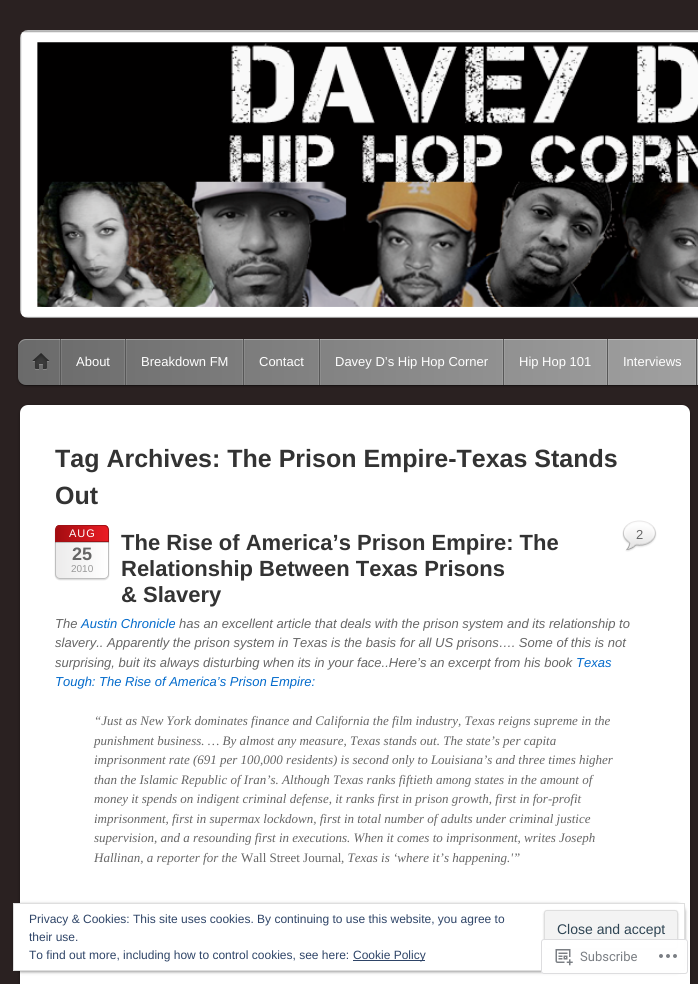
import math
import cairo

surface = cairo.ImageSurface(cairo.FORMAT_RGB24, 698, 984)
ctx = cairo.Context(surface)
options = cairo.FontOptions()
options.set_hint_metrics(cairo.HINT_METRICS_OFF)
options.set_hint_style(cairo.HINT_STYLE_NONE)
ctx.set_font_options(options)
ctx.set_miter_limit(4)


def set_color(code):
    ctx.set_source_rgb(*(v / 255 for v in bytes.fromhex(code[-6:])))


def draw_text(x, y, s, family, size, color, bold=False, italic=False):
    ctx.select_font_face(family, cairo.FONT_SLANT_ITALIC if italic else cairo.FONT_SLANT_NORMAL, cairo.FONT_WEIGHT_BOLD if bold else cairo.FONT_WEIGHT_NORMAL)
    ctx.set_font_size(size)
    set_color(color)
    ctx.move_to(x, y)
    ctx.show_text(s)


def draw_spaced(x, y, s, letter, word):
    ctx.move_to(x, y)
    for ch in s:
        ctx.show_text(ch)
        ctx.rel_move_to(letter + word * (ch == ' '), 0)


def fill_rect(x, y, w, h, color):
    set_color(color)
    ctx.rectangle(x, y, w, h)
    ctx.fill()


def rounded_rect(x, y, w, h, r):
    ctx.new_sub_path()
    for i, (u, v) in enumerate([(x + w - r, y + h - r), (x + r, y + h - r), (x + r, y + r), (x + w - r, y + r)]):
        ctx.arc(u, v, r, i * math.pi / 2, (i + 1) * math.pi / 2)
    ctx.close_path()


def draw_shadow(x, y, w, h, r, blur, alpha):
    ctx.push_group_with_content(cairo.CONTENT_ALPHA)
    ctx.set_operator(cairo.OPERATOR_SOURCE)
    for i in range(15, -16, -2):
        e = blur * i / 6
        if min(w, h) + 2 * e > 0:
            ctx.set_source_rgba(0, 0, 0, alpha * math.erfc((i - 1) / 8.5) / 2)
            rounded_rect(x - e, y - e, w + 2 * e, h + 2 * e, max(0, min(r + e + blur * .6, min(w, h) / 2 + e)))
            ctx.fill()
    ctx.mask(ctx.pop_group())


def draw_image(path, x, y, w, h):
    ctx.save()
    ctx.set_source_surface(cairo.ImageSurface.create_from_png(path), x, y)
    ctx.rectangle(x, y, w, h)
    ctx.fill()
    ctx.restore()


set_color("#2a2121")
ctx.paint()
draw_image("assets/img1.png", 20, 30, 678, 288)
set_color("#000000")
draw_shadow(18, 340, 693, 46, 8, 1.5, 0.3)
ctx.set_source_rgba(0, 0, 0, 0.3)
ctx.new_path()
ctx.move_to(18, 377)
ctx.curve_to(18, 382, 21, 386, 26, 386)
ctx.line_to(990, 386)
ctx.curve_to(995, 386, 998, 382, 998, 377)
ctx.curve_to(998, 381, 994, 385, 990, 385)
ctx.line_to(26, 385)
ctx.curve_to(22, 385, 18, 381, 18, 377)
ctx.close_path()
ctx.fill()
gradient = cairo.LinearGradient(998, 362, 18, 362)
gradient.add_color_stop_rgba(0, 0.725, 0.725, 0.725, 1)
gradient.add_color_stop_rgba(1, 0.416, 0.416, 0.416, 1)
ctx.set_source(gradient)
rounded_rect(18, 339, 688, 46, 8)
ctx.fill()
ctx.set_source_rgba(1, 1, 1, 0.3)
ctx.new_path()
ctx.move_to(26, 340)
ctx.line_to(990, 340)
ctx.curve_to(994, 340, 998, 344, 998, 348)
ctx.curve_to(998, 343, 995, 339, 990, 339)
ctx.line_to(26, 339)
ctx.curve_to(21, 339, 18, 343, 18, 348)
ctx.curve_to(18, 344, 22, 340, 26, 340)
ctx.close_path()
ctx.fill()
ctx.set_source_rgba(1, 1, 1, 0.1)
ctx.rectangle(61, 339, 1, 46)
ctx.fill()
ctx.rectangle(59, 339, 1, 46)
ctx.fill()
fill_rect(60, 339, 1, 46, "#575757")
draw_image("assets/img2.png", 32, 353, 18, 17)
ctx.set_source_rgba(1, 1, 1, 0.1)
ctx.rectangle(126, 339, 1, 46)
ctx.fill()
ctx.rectangle(124, 339, 1, 46)
ctx.fill()
fill_rect(125, 339, 1, 46, "#575757")
draw_text(76, 366, "About", "Liberation Sans", 13, "#ffffff")
ctx.set_source_rgba(1, 1, 1, 0.1)
ctx.rectangle(244, 339, 1, 46)
ctx.fill()
ctx.rectangle(242, 339, 1, 46)
ctx.fill()
fill_rect(243, 339, 1, 46, "#575757")
draw_text(141, 366, "Breakdown FM", "Liberation Sans", 13, "#ffffff")
ctx.set_source_rgba(1, 1, 1, 0.1)
ctx.rectangle(320, 339, 1, 46)
ctx.fill()
ctx.rectangle(318, 339, 1, 46)
ctx.fill()
fill_rect(319, 339, 1, 46, "#575757")
draw_text(259, 366, "Contact", "Liberation Sans", 13, "#ffffff")
ctx.set_source_rgba(1, 1, 1, 0.1)
ctx.rectangle(504, 339, 1, 46)
ctx.fill()
ctx.rectangle(502, 339, 1, 46)
ctx.fill()
fill_rect(503, 339, 1, 46, "#575757")
draw_text(335, 366, "Davey D’s Hip Hop Corner", "Liberation Sans", 13, "#ffffff")
ctx.set_source_rgba(1, 1, 1, 0.1)
ctx.rectangle(608, 339, 1, 46)
ctx.fill()
ctx.rectangle(606, 339, 1, 46)
ctx.fill()
fill_rect(607, 339, 1, 46, "#575757")
draw_text(519, 366, "Hip Hop 101", "Liberation Sans", 13, "#ffffff")
ctx.set_source_rgba(1, 1, 1, 0.1)
ctx.rectangle(697, 339, 1, 46)
ctx.fill()
ctx.rectangle(695, 339, 1, 46)
ctx.fill()
fill_rect(696, 339, 1, 46, "#575757")
draw_text(623, 366, "Interviews", "Liberation Sans", 13, "#ffffff")
set_color("#000000")
draw_shadow(20, 406, 670, 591, 8, 1.5, 0.4)
set_color("#ffffff")
rounded_rect(20, 405, 670, 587, 8)
ctx.fill()
draw_text(55, 467, "Tag Archives: The Prison Empire-Texas Stands", "Liberation Sans", 25, "#333333", bold=True)
draw_text(55, 504, "Out", "Liberation Sans", 25, "#333333", bold=True)
set_color("#000000")
draw_shadow(55, 526, 54, 54, 5, 0.5, 0.15)
ctx.save()
rounded_rect(55, 525, 54, 54, 5)
ctx.clip()
gradient = cairo.LinearGradient(108, 552, 56, 552)
gradient.add_color_stop_rgba(0, 1, 1, 1, 1)
gradient.add_color_stop_rgba(1, 0.925, 0.922, 0.922, 1)
ctx.set_source(gradient)
ctx.rectangle(56, 525, 52, 54)
ctx.fill()
ctx.restore()
rounded_rect(55.5, 525.5, 53, 53, 4.5)
set_color("#bebebe")
ctx.set_line_width(1)
ctx.stroke()
ctx.set_source_rgba(0, 0, 0, 0.2)
ctx.rectangle(55, 542, 54, 1)
ctx.fill()
ctx.save()
ctx.new_path()
ctx.move_to(60, 525)
ctx.line_to(104, 525)
ctx.curve_to(107, 525, 109, 527, 109, 530)
ctx.line_to(109, 542)
ctx.line_to(55, 542)
ctx.line_to(55, 530)
ctx.curve_to(55, 527, 57, 525, 60, 525)
ctx.close_path()
ctx.clip()
gradient = cairo.LinearGradient(108, 534, 56, 534)
gradient.add_color_stop_rgba(0, 0.922, 0.11, 0.141, 1)
gradient.add_color_stop_rgba(1, 0.639, 0.047, 0.063, 1)
ctx.set_source(gradient)
ctx.rectangle(56, 525, 52, 16)
ctx.fill()
ctx.restore()
ctx.new_path()
ctx.move_to(60, 525.5)
ctx.line_to(104, 525.5)
ctx.curve_to(106.5, 525.5, 108.5, 527.5, 108.5, 530)
ctx.line_to(108.5, 541.5)
ctx.line_to(55.5, 541.5)
ctx.line_to(55.5, 530)
ctx.curve_to(55.5, 527.5, 57.5, 525.5, 60, 525.5)
ctx.close_path()
set_color("#a11216")
ctx.stroke()
ctx.select_font_face("Liberation Sans")
ctx.set_font_size(11)
set_color("#ffffff")
draw_spaced(69, 537, "AUG", 1, 0)
draw_text(72, 560, "25", "Liberation Sans", 18, "#666666", bold=True)
draw_text(71, 572, "2010", "Liberation Sans", 10, "#999999")
draw_text(121, 550, "The Rise of America’s Prison Empire: The", "Liberation Sans", 22, "#333333", bold=True)
draw_text(121, 576, "Relationship Between Texas Prisons", "Liberation Sans", 22, "#333333", bold=True)
draw_text(121, 602, "& Slavery", "Liberation Sans", 22, "#333333", bold=True)
draw_image("assets/img3.png", 622, 520, 35, 32)
draw_text(636, 539, "2", "Liberation Sans", 13, "#666666")
draw_text(55, 628, "The", "Liberation Sans", 13, "#666666", italic=True)
draw_text(81, 628, "Austin Chronicle", "Liberation Sans", 13, "#026acb", italic=True)
draw_text(179, 628, "has an excellent article that deals with the prison system and its relationship to", "Liberation Sans", 13, "#666666", italic=True)
draw_text(55, 647, "slavery.. Apparently the prison system in Texas is the basis for all US prisons…. Some of this is not", "Liberation Sans", 13, "#666666", italic=True)
draw_text(55, 667, "surprising, buit its always disturbing when its in your face..Here’s an excerpt from his book", "Liberation Sans", 13, "#666666", italic=True)
draw_text(576, 667, "Texas", "Liberation Sans", 13, "#026acb", italic=True)
draw_text(55, 686, "Tough: The Rise of America’s Prison Empire:", "Liberation Sans", 13, "#026acb", italic=True)
draw_text(94, 725, "“Just as New York dominates finance and California the film industry, Texas reigns supreme in the", "Liberation Serif", 13, "#666666", italic=True)
draw_text(94, 745, "punishment business. … By almost any measure, Texas stands out. The state’s per capita", "Liberation Serif", 13, "#666666", italic=True)
draw_text(94, 764, "imprisonment rate (691 per 100,000 residents) is second only to Louisiana’s and three times higher", "Liberation Serif", 13, "#666666", italic=True)
draw_text(94, 784, "than the Islamic Republic of Iran’s. Although Texas ranks fiftieth among states in the amount of", "Liberation Serif", 13, "#666666", italic=True)
draw_text(94, 803, "money it spends on indigent criminal defense, it ranks first in prison growth, first in for-profit", "Liberation Serif", 13, "#666666", italic=True)
draw_text(94, 823, "imprisonment, first in supermax lockdown, first in total number of adults under criminal justice", "Liberation Serif", 13, "#666666", italic=True)
draw_text(94, 842, "supervision, and a resounding first in executions. When it comes to imprisonment, writes Joseph", "Liberation Serif", 13, "#666666", italic=True)
draw_text(94, 862, "Hallinan, a reporter for the", "Liberation Serif", 13, "#666666", italic=True)
draw_text(241, 862, "Wall Street Journal", "Liberation Serif", 13, "#666666")
draw_text(341, 862, ", Texas is ‘where it’s happening.'”", "Liberation Serif", 13, "#666666", italic=True)
set_color("#000000")
draw_shadow(13, 904, 672, 68, 8, 1.5, 0.4)
set_color("#ffffff")
ctx.rectangle(13.5, 903.5, 671, 67)
ctx.fill_preserve()
set_color("#dedede")
ctx.stroke()
draw_text(29, 923, "Privacy & Cookies: This site uses cookies. By continuing to use this website, you agree to", "Liberation Sans", 12, "#2e4467")
draw_text(29, 941, "their use.", "Liberation Sans", 12, "#2e4467")
set_color("#000000")
draw_shadow(544, 911, 134, 39, 3, 1, 0.2)
set_color("#f3f3f3")
rounded_rect(544.5, 910.5, 133, 38, 2.5)
ctx.fill_preserve()
set_color("#dedede")
ctx.stroke()
draw_text(557, 934, "Close and accept", "Liberation Sans", 14, "#2e4453")
draw_text(29, 959, "To find out more, including how to control cookies, see here:", "Liberation Sans", 12, "#2e4467")
fill_rect(353, 960, 72, 1, "#2e4467")
draw_text(353, 959, "Cookie Policy", "Liberation Sans", 12, "#2e4467")
ctx.set_source_rgba(1, 1, 1, 0.98)
rounded_rect(541, 939, 147, 35, 3)
ctx.fill()
rounded_rect(541.5, 939.5, 146, 34, 2.5)
ctx.set_source_rgba(0.863, 0.863, 0.871, 0.98)
ctx.stroke()
draw_image("assets/img4.png", 555, 949, 18, 17)
draw_text(580, 961, "Subscribe", "Roboto", 13, "#7b7f84")
draw_image("assets/img5.png", 659, 954, 18, 4)
surface.write_to_png("output.png")
